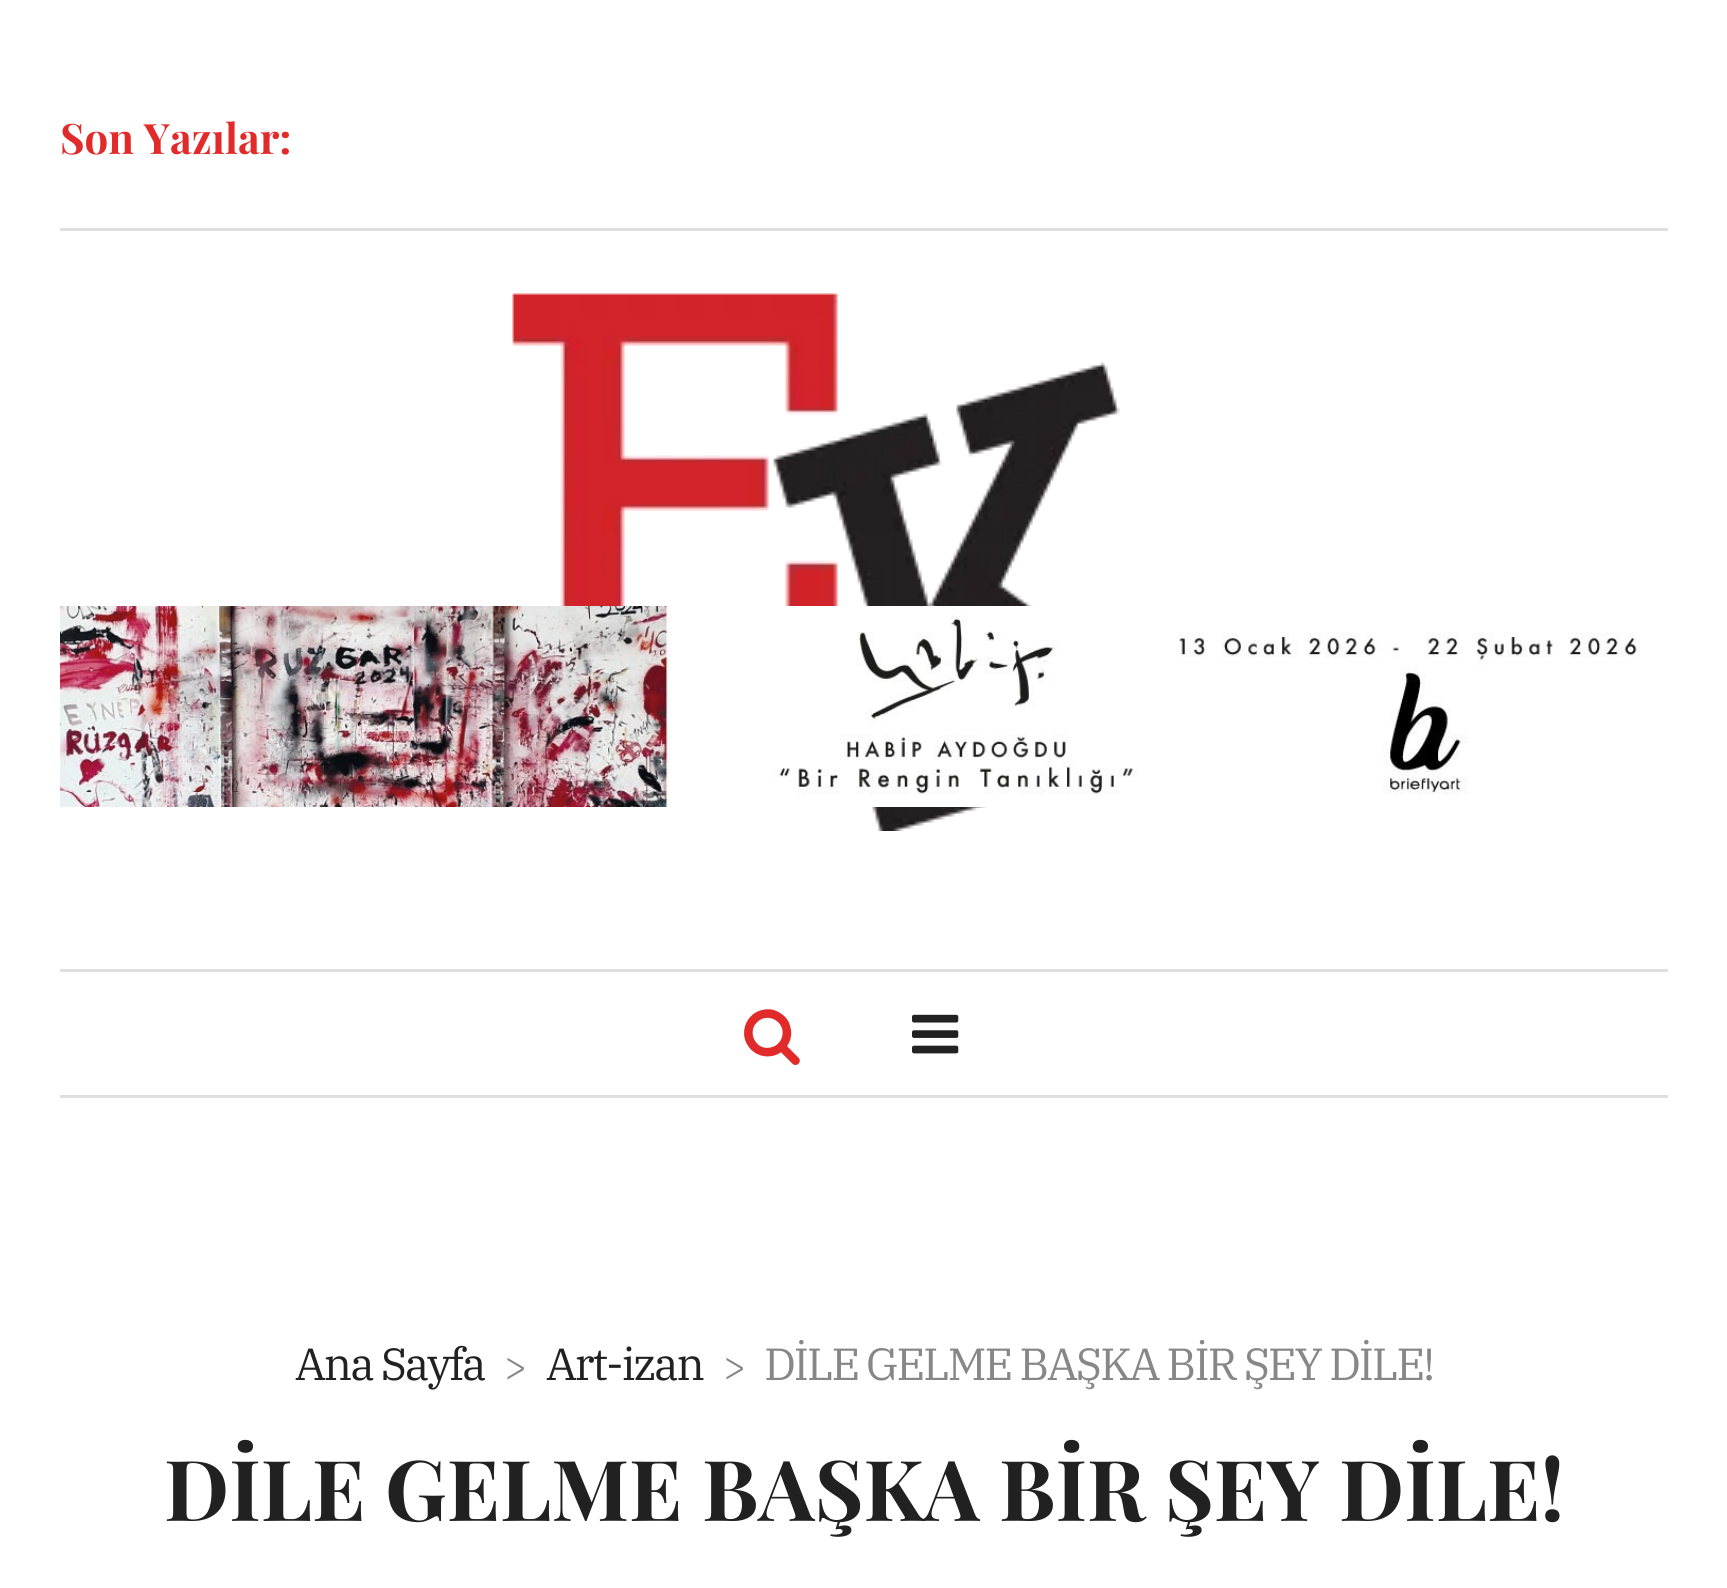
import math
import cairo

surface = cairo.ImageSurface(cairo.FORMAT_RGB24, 1727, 1588)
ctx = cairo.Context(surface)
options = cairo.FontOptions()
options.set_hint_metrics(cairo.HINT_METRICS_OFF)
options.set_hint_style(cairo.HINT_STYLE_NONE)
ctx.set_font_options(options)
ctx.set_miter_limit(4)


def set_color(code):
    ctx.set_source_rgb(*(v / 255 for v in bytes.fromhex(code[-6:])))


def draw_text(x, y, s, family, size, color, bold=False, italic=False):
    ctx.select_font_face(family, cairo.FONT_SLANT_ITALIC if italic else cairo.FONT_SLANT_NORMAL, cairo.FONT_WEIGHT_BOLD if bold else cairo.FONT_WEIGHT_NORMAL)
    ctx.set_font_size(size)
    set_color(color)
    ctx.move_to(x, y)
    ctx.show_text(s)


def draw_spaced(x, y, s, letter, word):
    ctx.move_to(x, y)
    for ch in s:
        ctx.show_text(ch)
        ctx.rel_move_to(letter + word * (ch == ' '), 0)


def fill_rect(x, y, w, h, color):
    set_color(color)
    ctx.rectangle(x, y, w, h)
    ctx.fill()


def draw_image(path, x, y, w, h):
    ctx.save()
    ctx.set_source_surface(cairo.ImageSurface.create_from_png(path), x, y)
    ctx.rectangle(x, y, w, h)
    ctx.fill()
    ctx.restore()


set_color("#ffffff")
ctx.paint()
fill_rect(60, 228, 1608, 3, "#dedede")
draw_text(60, 154, "Son Yazılar:", "Playfair Display", 42, "#e12b2b", bold=True)
fill_rect(60, 969, 1608, 3, "#dedede")
draw_image("assets/img1.png", 512, 293, 608, 538)
draw_image("assets/img2.png", 60, 606, 1577, 201)
fill_rect(60, 1095, 1608, 3, "#dedede")
draw_image("assets/img3.png", 744, 1009, 56, 56)
draw_image("assets/img4.png", 912, 1014, 47, 40)
ctx.select_font_face("IBM Plex Serif")
ctx.set_font_size(45)
set_color("#212121")
draw_spaced(295, 1380, "Ana Sayfa", -2.25, 0)
ctx.set_font_size(39)
set_color("#878787")
draw_spaced(504, 1379, ">", -2.25, 0)
ctx.set_font_size(45)
set_color("#212121")
draw_spaced(546, 1380, "Art-izan", -2.25, 0)
ctx.set_font_size(39)
set_color("#878787")
draw_spaced(723, 1379, ">", -2.25, 0)
ctx.set_font_size(45)
draw_spaced(764, 1380, "DİLE GELME BAŞKA BİR ŞEY DİLE!", -2.25, 0)
draw_text(164, 1521, "DİLE GELME BAŞKA BİR ŞEY DİLE!", "Playfair Display", 84, "#212121", bold=True)
surface.write_to_png("output.png")
